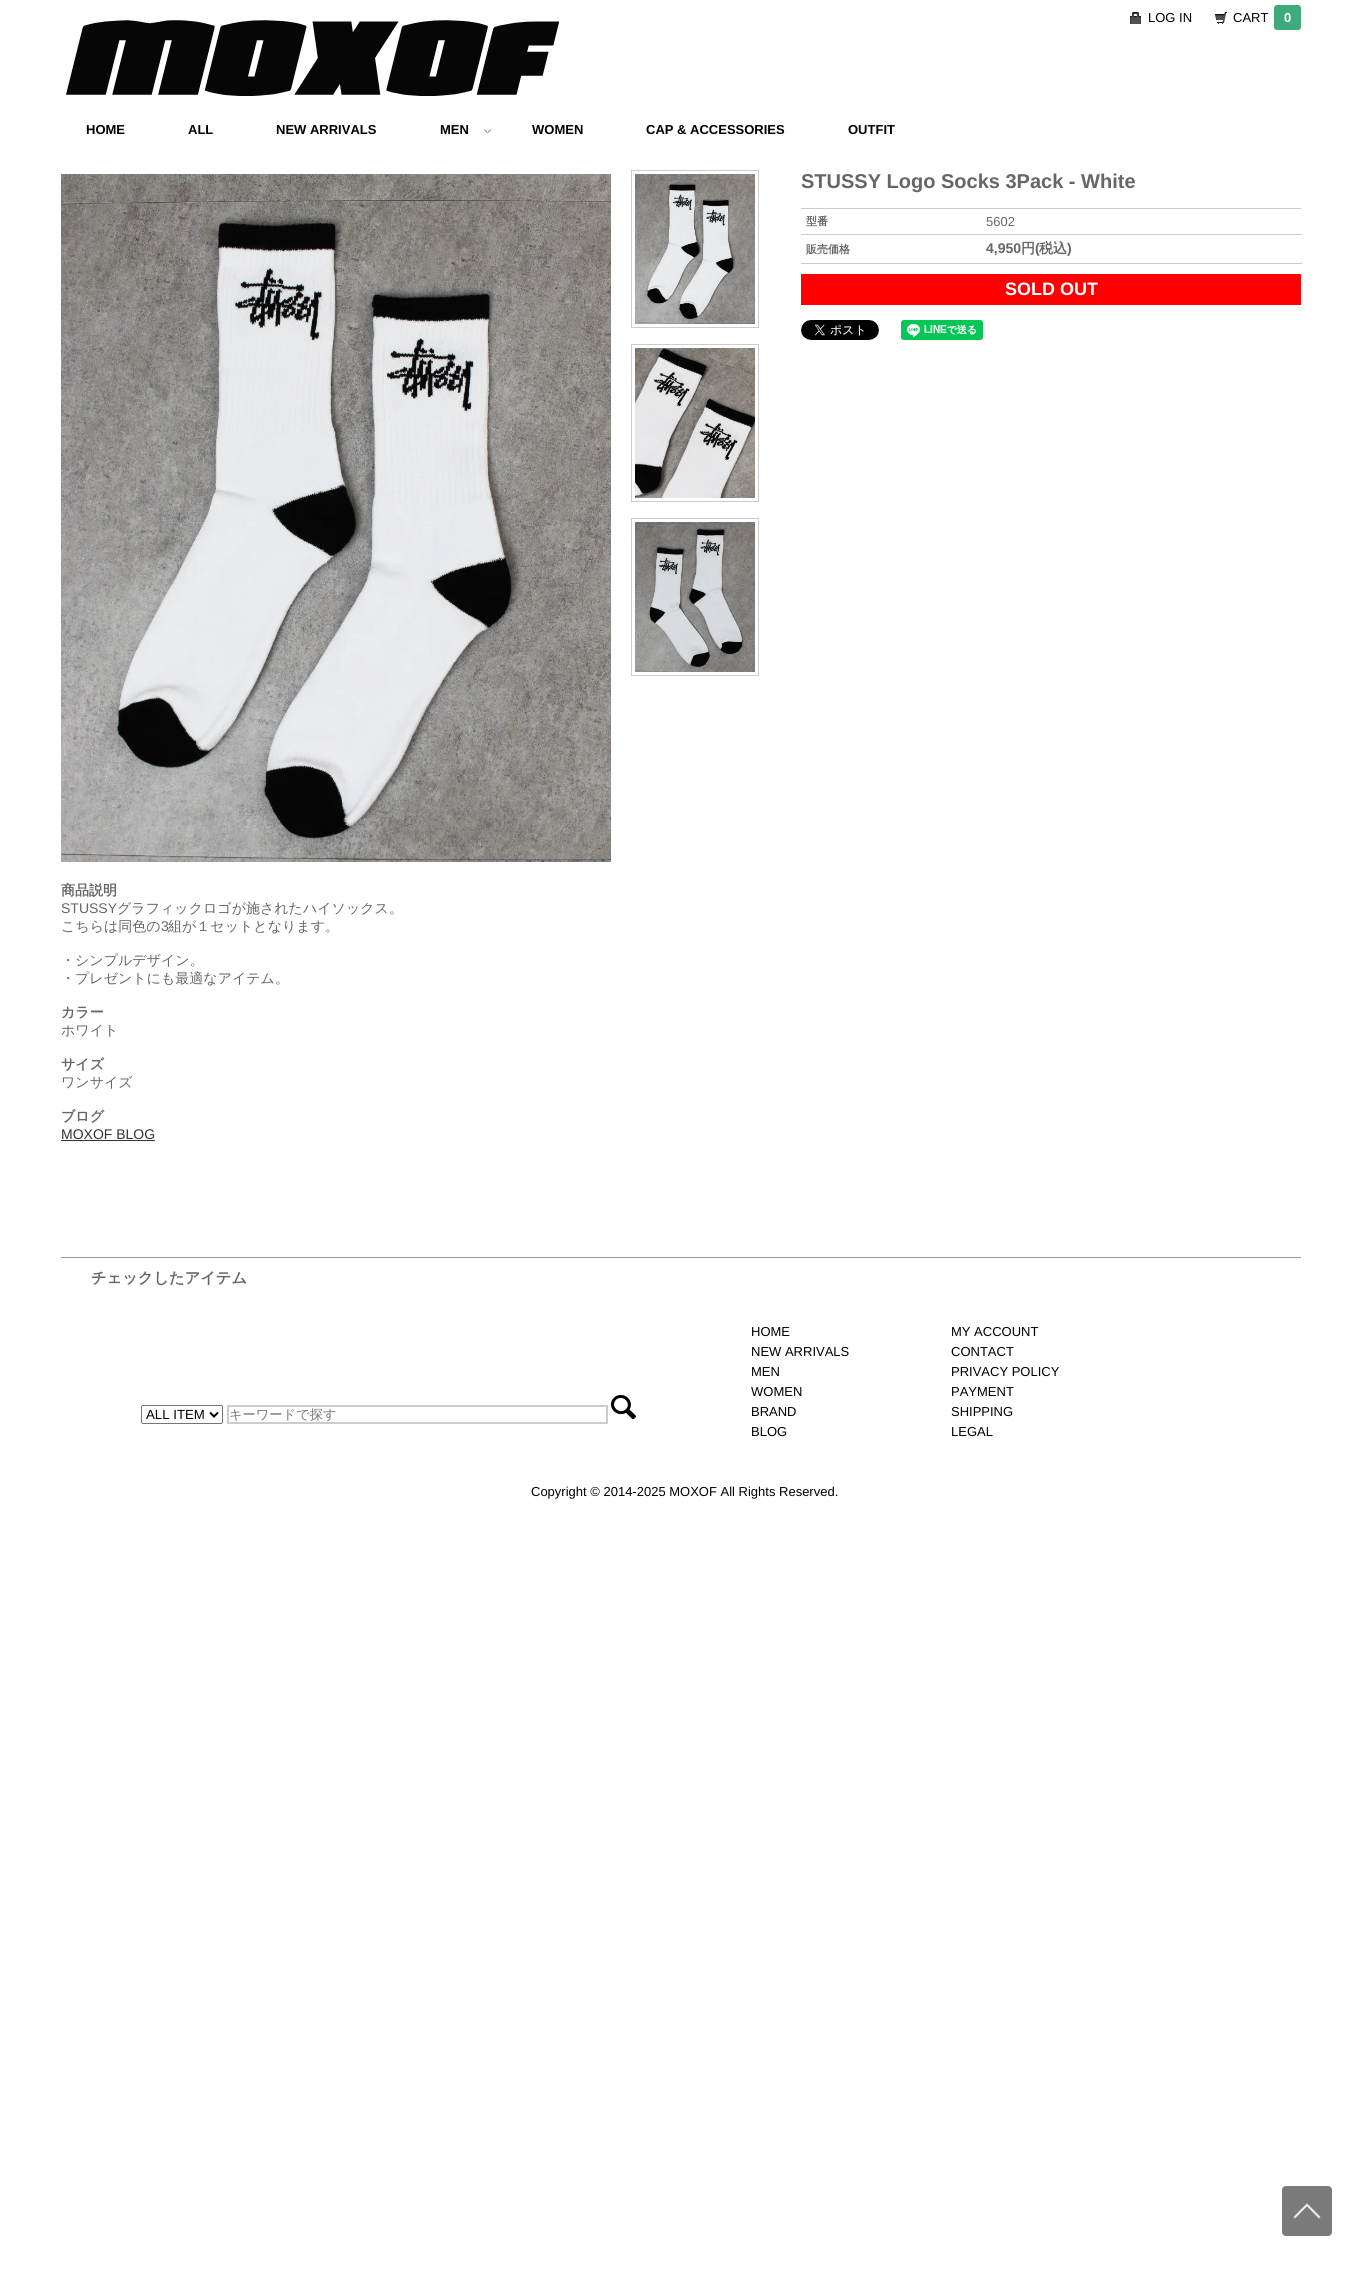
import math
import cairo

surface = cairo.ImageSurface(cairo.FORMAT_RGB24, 1362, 2286)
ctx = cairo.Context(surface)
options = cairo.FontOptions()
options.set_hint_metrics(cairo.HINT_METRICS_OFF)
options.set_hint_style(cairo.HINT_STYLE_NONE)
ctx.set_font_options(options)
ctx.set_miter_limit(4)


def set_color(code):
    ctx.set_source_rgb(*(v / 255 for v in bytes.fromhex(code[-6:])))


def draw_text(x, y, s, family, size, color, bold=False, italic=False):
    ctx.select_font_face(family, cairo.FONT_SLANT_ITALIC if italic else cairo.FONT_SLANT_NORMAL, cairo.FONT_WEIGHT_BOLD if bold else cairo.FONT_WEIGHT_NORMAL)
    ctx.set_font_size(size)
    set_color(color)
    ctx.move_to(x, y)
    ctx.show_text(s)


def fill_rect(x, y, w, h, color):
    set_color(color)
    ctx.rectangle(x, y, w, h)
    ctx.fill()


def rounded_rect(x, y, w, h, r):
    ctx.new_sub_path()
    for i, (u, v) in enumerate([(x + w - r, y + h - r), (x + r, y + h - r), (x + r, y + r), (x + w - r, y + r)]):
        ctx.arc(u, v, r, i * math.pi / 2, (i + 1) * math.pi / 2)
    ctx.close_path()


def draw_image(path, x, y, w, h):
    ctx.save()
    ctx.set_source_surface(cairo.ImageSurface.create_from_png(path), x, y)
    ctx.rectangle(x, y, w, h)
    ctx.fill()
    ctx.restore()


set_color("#ffffff")
ctx.paint()
draw_image("assets/img1.png", 1130, 12, 11, 12)
draw_text(1148, 22, "LOG IN", "Liberation Sans", 13, "#000000")
draw_image("assets/img2.png", 1215, 12, 12, 12)
draw_text(1233, 22, "CART", "Liberation Sans", 13, "#000000")
set_color("#3fab7a")
rounded_rect(1274, 5, 27, 25, 3)
ctx.fill()
draw_text(1284, 22, "0", "Liberation Sans", 13, "#ffffff", bold=True)
draw_image("assets/img3.png", 66, 20, 493, 76)
draw_text(86, 134, "HOME", "Liberation Sans", 13, "#000000", bold=True)
draw_text(188, 134, "ALL", "Liberation Sans", 13, "#000000", bold=True)
draw_text(276, 134, "NEW ARRIVALS", "Liberation Sans", 13, "#000000", bold=True)
draw_text(440, 134, "MEN", "Liberation Sans", 13, "#000000", bold=True)
draw_image("assets/img4.png", 484, 128, 8, 6)
draw_text(532, 134, "WOMEN", "Liberation Sans", 13, "#000000", bold=True)
draw_text(646, 134, "CAP & ACCESSORIES", "Liberation Sans", 13, "#000000", bold=True)
draw_text(848, 134, "OUTFIT", "Liberation Sans", 13, "#000000", bold=True)
draw_text(801, 188, "STUSSY Logo Socks 3Pack - White", "Liberation Sans", 20, "#666666", bold=True)
fill_rect(801, 208, 500, 1, "#cccccc")
draw_text(806, 225, "型番", "WenQuanYi Zen Hei", 11, "#666666", bold=True)
fill_rect(801, 234, 501, 1, "#cccccc")
draw_text(986, 226, "5602", "Liberation Sans", 13, "#666666")
draw_text(806, 253, "販売価格", "WenQuanYi Zen Hei", 11, "#666666", bold=True)
fill_rect(801, 263, 501, 1, "#cccccc")
draw_text(986, 253, "4,950", "Liberation Sans", 14, "#666666", bold=True)
draw_text(1021, 253, "円", "WenQuanYi Zen Hei", 14, "#666666", bold=True)
draw_text(1035, 253, "(", "Liberation Sans", 14, "#666666", bold=True)
draw_text(1039, 253, "税込", "WenQuanYi Zen Hei", 14, "#666666", bold=True)
draw_text(1067, 253, ")", "Liberation Sans", 14, "#666666", bold=True)
fill_rect(801, 274, 500, 31, "#ff0000")
draw_text(1005, 295, "SOLD OUT", "Liberation Sans", 18, "#ffffff", bold=True)
draw_image("assets/img5.png", 801, 320, 78, 20)
draw_image("assets/img6.png", 901, 320, 82, 20)
ctx.rectangle(631.5, 170.5, 127, 157)
set_color("#cccccc")
ctx.set_line_width(1)
ctx.stroke()
draw_image("assets/img7.png", 635, 174, 120, 150)
ctx.rectangle(631.5, 344.5, 127, 157)
ctx.stroke()
draw_image("assets/img8.png", 635, 348, 120, 150)
ctx.rectangle(631.5, 518.5, 127, 157)
ctx.stroke()
draw_image("assets/img9.png", 635, 522, 120, 150)
draw_image("assets/img10.png", 61, 174, 550, 688)
draw_text(61, 895, "商品説明", "WenQuanYi Zen Hei", 14, "#666666", bold=True)
draw_text(61, 913, "STUSSY", "Liberation Sans", 14, "#666666")
draw_text(117, 913, "グラフィックロゴが施されたハイソックス。", "WenQuanYi Zen Hei Medium", 14, "#666666")
draw_text(61, 931, "こちらは同色の", "WenQuanYi Zen Hei Medium", 14, "#666666")
draw_text(161, 931, "3", "Liberation Sans", 14, "#666666")
draw_text(168, 931, "組が１セットとなります。", "WenQuanYi Zen Hei Medium", 14, "#666666")
draw_text(61, 965, "・シンプルデザイン。", "WenQuanYi Zen Hei Medium", 14, "#666666")
draw_text(61, 983, "・プレゼントにも最適なアイテム。", "WenQuanYi Zen Hei Medium", 14, "#666666")
draw_text(61, 1017, "カラー", "WenQuanYi Zen Hei", 14, "#666666", bold=True)
draw_text(61, 1035, "ホワイト", "WenQuanYi Zen Hei Medium", 14, "#666666")
draw_text(61, 1069, "サイズ", "WenQuanYi Zen Hei", 14, "#666666", bold=True)
draw_text(61, 1087, "ワンサイズ", "WenQuanYi Zen Hei Medium", 14, "#666666")
draw_text(61, 1121, "ブログ", "WenQuanYi Zen Hei", 14, "#666666", bold=True)
draw_text(61, 1139, "MOXOF BLOG", "Liberation Sans", 14, "#333333")
fill_rect(61, 1140, 94, 1, "#333333")
fill_rect(61, 1257, 1240, 1, "#999999")
draw_text(91, 1283, "チェックしたアイテム", "WenQuanYi Zen Hei", 15.25, "#666666", bold=True)
rounded_rect(141.5, 1405.5, 81, 18, 1.5)
set_color("#767676")
ctx.stroke()
ctx.new_path()
ctx.move_to(210, 1412.5)
ctx.line_to(214, 1416.5)
ctx.line_to(218, 1412.5)
set_color("#000000")
ctx.set_line_width(2)
ctx.stroke()
draw_text(146, 1419, "ALL ITEM", "Liberation Sans", 13.25, "#000000")
ctx.rectangle(228, 1406, 379, 17)
set_color("#cccccc")
ctx.stroke()
draw_text(229, 1419, "キーワードで探す", "WenQuanYi Zen Hei Medium", 13.25, "#757575")
draw_image("assets/img11.png", 611, 1395, 25, 24)
draw_text(751, 1336, "HOME", "Liberation Sans", 13, "#000000")
draw_text(751, 1356, "NEW ARRIVALS", "Liberation Sans", 13, "#000000")
draw_text(751, 1376, "MEN", "Liberation Sans", 13, "#000000")
draw_text(751, 1396, "WOMEN", "Liberation Sans", 13, "#000000")
draw_text(751, 1416, "BRAND", "Liberation Sans", 13, "#000000")
draw_text(751, 1436, "BLOG", "Liberation Sans", 13, "#000000")
draw_text(951, 1336, "MY ACCOUNT", "Liberation Sans", 13, "#000000")
draw_text(951, 1356, "CONTACT", "Liberation Sans", 13, "#000000")
draw_text(951, 1376, "PRIVACY POLICY", "Liberation Sans", 13, "#000000")
draw_text(951, 1396, "PAYMENT", "Liberation Sans", 13, "#000000")
draw_text(951, 1416, "SHIPPING", "Liberation Sans", 13, "#000000")
draw_text(951, 1436, "LEGAL", "Liberation Sans", 13, "#000000")
draw_text(531, 1496, "Copyright © 2014-2025 MOXOF All Rights Reserved.", "Liberation Sans", 13, "#000000")
set_color("#7a7a7a")
rounded_rect(1282, 2186, 50, 50, 4)
ctx.fill()
draw_image("assets/img12.png", 1293, 2203, 28, 16)
surface.write_to_png("output.png")
